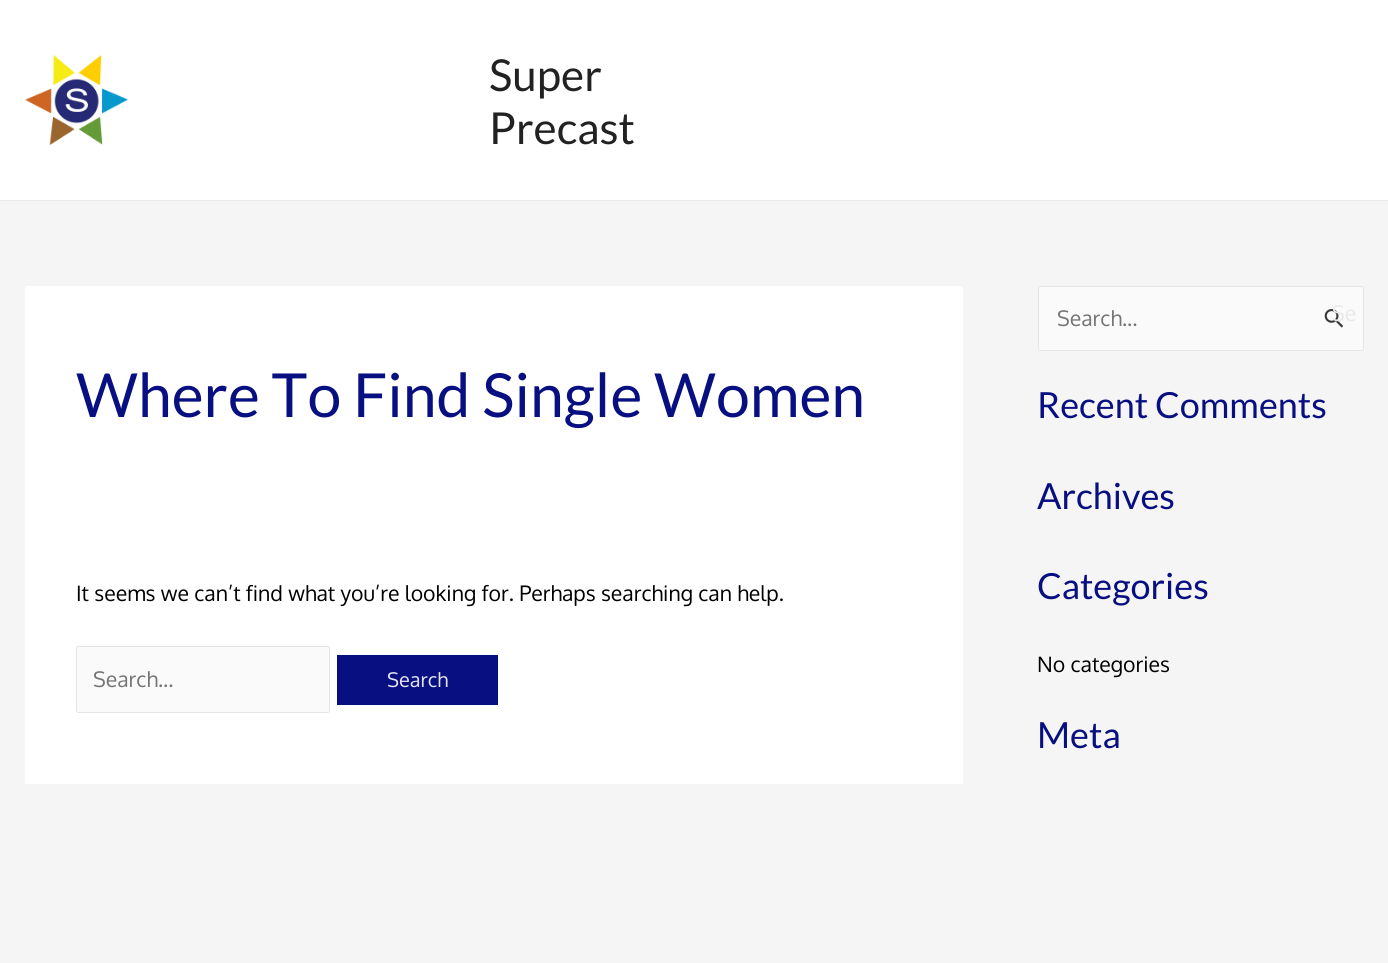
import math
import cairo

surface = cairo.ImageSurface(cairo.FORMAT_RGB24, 1388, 963)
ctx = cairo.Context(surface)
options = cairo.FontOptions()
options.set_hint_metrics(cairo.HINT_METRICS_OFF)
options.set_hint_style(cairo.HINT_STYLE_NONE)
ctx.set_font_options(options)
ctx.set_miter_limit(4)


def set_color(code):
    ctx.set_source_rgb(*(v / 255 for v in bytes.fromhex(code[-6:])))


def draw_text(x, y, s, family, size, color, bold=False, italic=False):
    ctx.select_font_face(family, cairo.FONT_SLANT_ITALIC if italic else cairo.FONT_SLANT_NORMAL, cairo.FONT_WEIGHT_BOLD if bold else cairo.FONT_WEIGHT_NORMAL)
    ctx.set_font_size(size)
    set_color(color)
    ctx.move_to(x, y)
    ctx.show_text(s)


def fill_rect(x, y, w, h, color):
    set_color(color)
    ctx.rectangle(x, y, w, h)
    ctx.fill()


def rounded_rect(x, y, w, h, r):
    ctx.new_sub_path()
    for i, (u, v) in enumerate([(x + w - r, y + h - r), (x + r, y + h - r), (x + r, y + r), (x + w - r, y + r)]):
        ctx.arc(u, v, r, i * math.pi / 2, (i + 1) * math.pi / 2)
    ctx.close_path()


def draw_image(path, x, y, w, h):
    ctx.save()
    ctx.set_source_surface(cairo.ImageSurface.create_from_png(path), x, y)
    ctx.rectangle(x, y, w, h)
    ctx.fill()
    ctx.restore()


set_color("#f5f5f5")
ctx.paint()
fill_rect(0, 0, 1388, 200, "#ffffff")
fill_rect(0, 200, 1388, 1, "#eaeaea")
draw_image("assets/img1.png", 25, 55, 104, 90)
draw_text(489, 91, "Super", "Lato", 44, "#222222")
draw_text(489, 144, "Precast", "Lato", 44, "#222222")
fill_rect(25, 286, 938, 498, "#ffffff")
draw_text(76, 417, "Where To Find Single Women", "Lato", 60.75, "#080f81")
draw_text(76, 601, "It seems we can’t find what you’re looking for. Perhaps searching can help.", "Oxygen", 21.25, "#000000")
set_color("#fafafa")
rounded_rect(76.5, 646.5, 253, 66, 2)
ctx.fill_preserve()
set_color("#e5e5e5")
ctx.set_line_width(1)
ctx.stroke()
draw_text(93, 687, "Search...", "Oxygen", 21.25, "#757575")
fill_rect(337, 655, 161, 50, "#080f81")
draw_text(387, 687, "Search", "Oxygen", 20, "#e6e7f2")
set_color("#fafafa")
rounded_rect(1038.5, 286.5, 325, 64, 2)
ctx.fill_preserve()
set_color("#e5e5e5")
ctx.stroke()
draw_text(1057, 326, "Search...", "Oxygen", 21.25, "#757575")
draw_image("assets/img2.png", 1324, 309, 19, 19)
draw_text(1332, 321, "Se", "Oxygen", 21.25, "#e9e9e9")
draw_text(1037, 418, "Recent Comments", "Lato", 36, "#080f81")
draw_text(1037, 509, "Archives", "Lato", 36, "#080f81")
draw_text(1037, 599, "Categories", "Lato", 36, "#080f81")
draw_text(1037, 672, "No categories", "Oxygen", 21.25, "#000000")
draw_text(1037, 748, "Meta", "Lato", 36, "#080f81")
surface.write_to_png("output.png")
